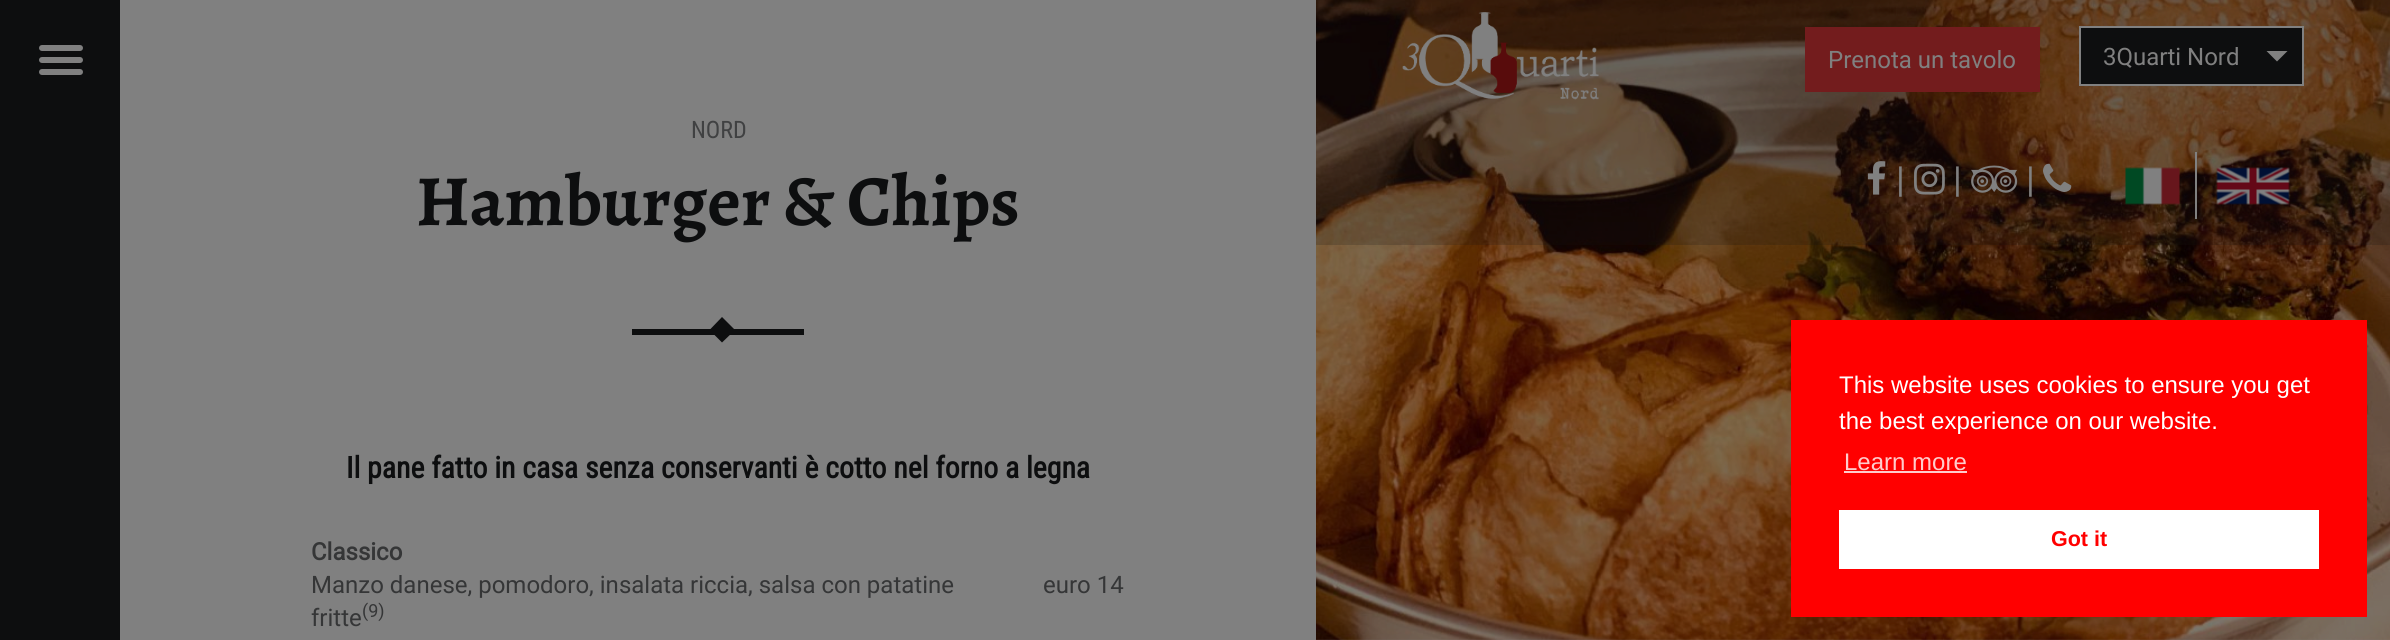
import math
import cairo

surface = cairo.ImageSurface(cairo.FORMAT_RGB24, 2390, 640)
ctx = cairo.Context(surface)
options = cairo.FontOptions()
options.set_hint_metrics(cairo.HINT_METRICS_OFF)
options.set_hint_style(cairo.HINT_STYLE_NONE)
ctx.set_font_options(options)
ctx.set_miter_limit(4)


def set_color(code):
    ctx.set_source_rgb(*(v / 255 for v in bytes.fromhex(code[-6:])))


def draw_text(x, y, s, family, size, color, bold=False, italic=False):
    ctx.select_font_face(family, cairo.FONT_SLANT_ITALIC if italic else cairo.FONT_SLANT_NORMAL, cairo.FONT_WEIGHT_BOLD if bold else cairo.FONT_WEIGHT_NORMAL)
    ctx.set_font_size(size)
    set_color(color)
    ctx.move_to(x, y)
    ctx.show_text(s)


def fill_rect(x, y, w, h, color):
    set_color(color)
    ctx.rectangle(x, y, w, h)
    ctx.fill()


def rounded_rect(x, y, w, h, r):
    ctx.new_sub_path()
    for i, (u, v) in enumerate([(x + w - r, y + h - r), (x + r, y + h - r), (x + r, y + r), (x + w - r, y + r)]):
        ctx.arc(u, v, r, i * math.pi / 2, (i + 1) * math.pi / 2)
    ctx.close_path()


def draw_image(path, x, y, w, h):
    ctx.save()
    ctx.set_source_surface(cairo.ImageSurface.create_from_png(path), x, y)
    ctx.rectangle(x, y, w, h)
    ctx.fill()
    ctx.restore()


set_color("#808080")
ctx.paint()
draw_text(691, 138, "NORD", "Roboto Condensed", 24, "#404142")
draw_text(416, 225, "Hamburger & Chips", "Alegreya", 72, "#0d0e0f", bold=True)
fill_rect(632, 329, 172, 6, "#0d0e0f")
ctx.new_path()
ctx.move_to(722, 317)
ctx.line_to(735, 330)
ctx.line_to(722, 342.5)
ctx.line_to(709.5, 330)
ctx.close_path()
ctx.fill()
draw_text(346, 478, "Il pane fatto in casa senza conservanti è cotto nel forno a legna", "Roboto Condensed", 29.75, "#0d0e0f", bold=True)
draw_text(311, 560, "Classico", "Roboto", 24, "#353637", bold=True)
draw_text(311, 593, "Manzo danese, pomodoro, insalata riccia, salsa con patatine", "Roboto", 24, "#353637")
draw_text(311, 626, "fritte", "Roboto", 24, "#353637")
draw_text(362, 617, "(9)", "Roboto", 18, "#353637")
draw_text(1043, 593, "euro 14", "Roboto", 24, "#353637")
draw_image("assets/img1.png", 1316, 0, 1074, 640)
fill_rect(0, 0, 120, 640, "#0d0e0f")
set_color("#808080")
rounded_rect(39, 45, 44, 6, 3)
ctx.fill()
rounded_rect(39, 57, 44, 6, 3)
ctx.fill()
rounded_rect(39, 69, 44, 6, 3)
ctx.fill()
ctx.set_source_rgba(0.082, 0.086, 0.09, 0.2)
ctx.rectangle(1316, 0, 1074, 245)
ctx.fill()
draw_image("assets/img2.png", 1402, 12, 197, 88)
fill_rect(1805, 27, 235, 65, "#731c1d")
draw_text(1828, 68, "Prenota un tavolo", "Roboto", 24, "#808080")
set_color("#0d0e0f")
ctx.rectangle(2080, 27, 223, 58)
ctx.fill_preserve()
set_color("#808080")
ctx.stroke()
draw_text(2103, 65, "3Quarti Nord", "Roboto", 24, "#808080")
ctx.new_path()
ctx.move_to(2266.5, 51)
ctx.line_to(2287.5, 51)
ctx.line_to(2277, 61.5)
ctx.close_path()
ctx.fill()
draw_image("assets/img3.png", 1867, 161, 19, 34)
draw_text(1896, 192, "|", "Roboto", 36, "#808080")
draw_image("assets/img4.png", 1914, 163, 31, 32)
draw_text(1953, 192, "|", "Roboto", 36, "#808080")
draw_image("assets/img5.png", 1971, 165, 47, 28)
draw_text(2026, 192, "|", "Roboto", 36, "#808080")
draw_image("assets/img6.png", 2043, 163, 29, 29)
fill_rect(2195, 152, 2, 67, "#808080")
draw_image("assets/img7.png", 2125, 167, 55, 38)
draw_image("assets/img8.png", 2216, 167, 74, 38)
fill_rect(1791, 320, 576, 297, "#ff0000")
draw_text(1839, 393, "This website uses cookies to ensure you get", "Liberation Sans", 24, "#ffffff")
draw_text(1839, 429, "the best experience on our website.", "Liberation Sans", 24, "#ffffff")
draw_text(1844, 470, "Learn more", "Liberation Sans", 24, "#ffcccc")
fill_rect(1844, 471, 123, 2, "#ffcccc")
fill_rect(1839, 510, 480, 59, "#ffffff")
draw_text(2051, 546, "Got it", "Liberation Sans", 21.5, "#ff0000", bold=True)
surface.write_to_png("output.png")
